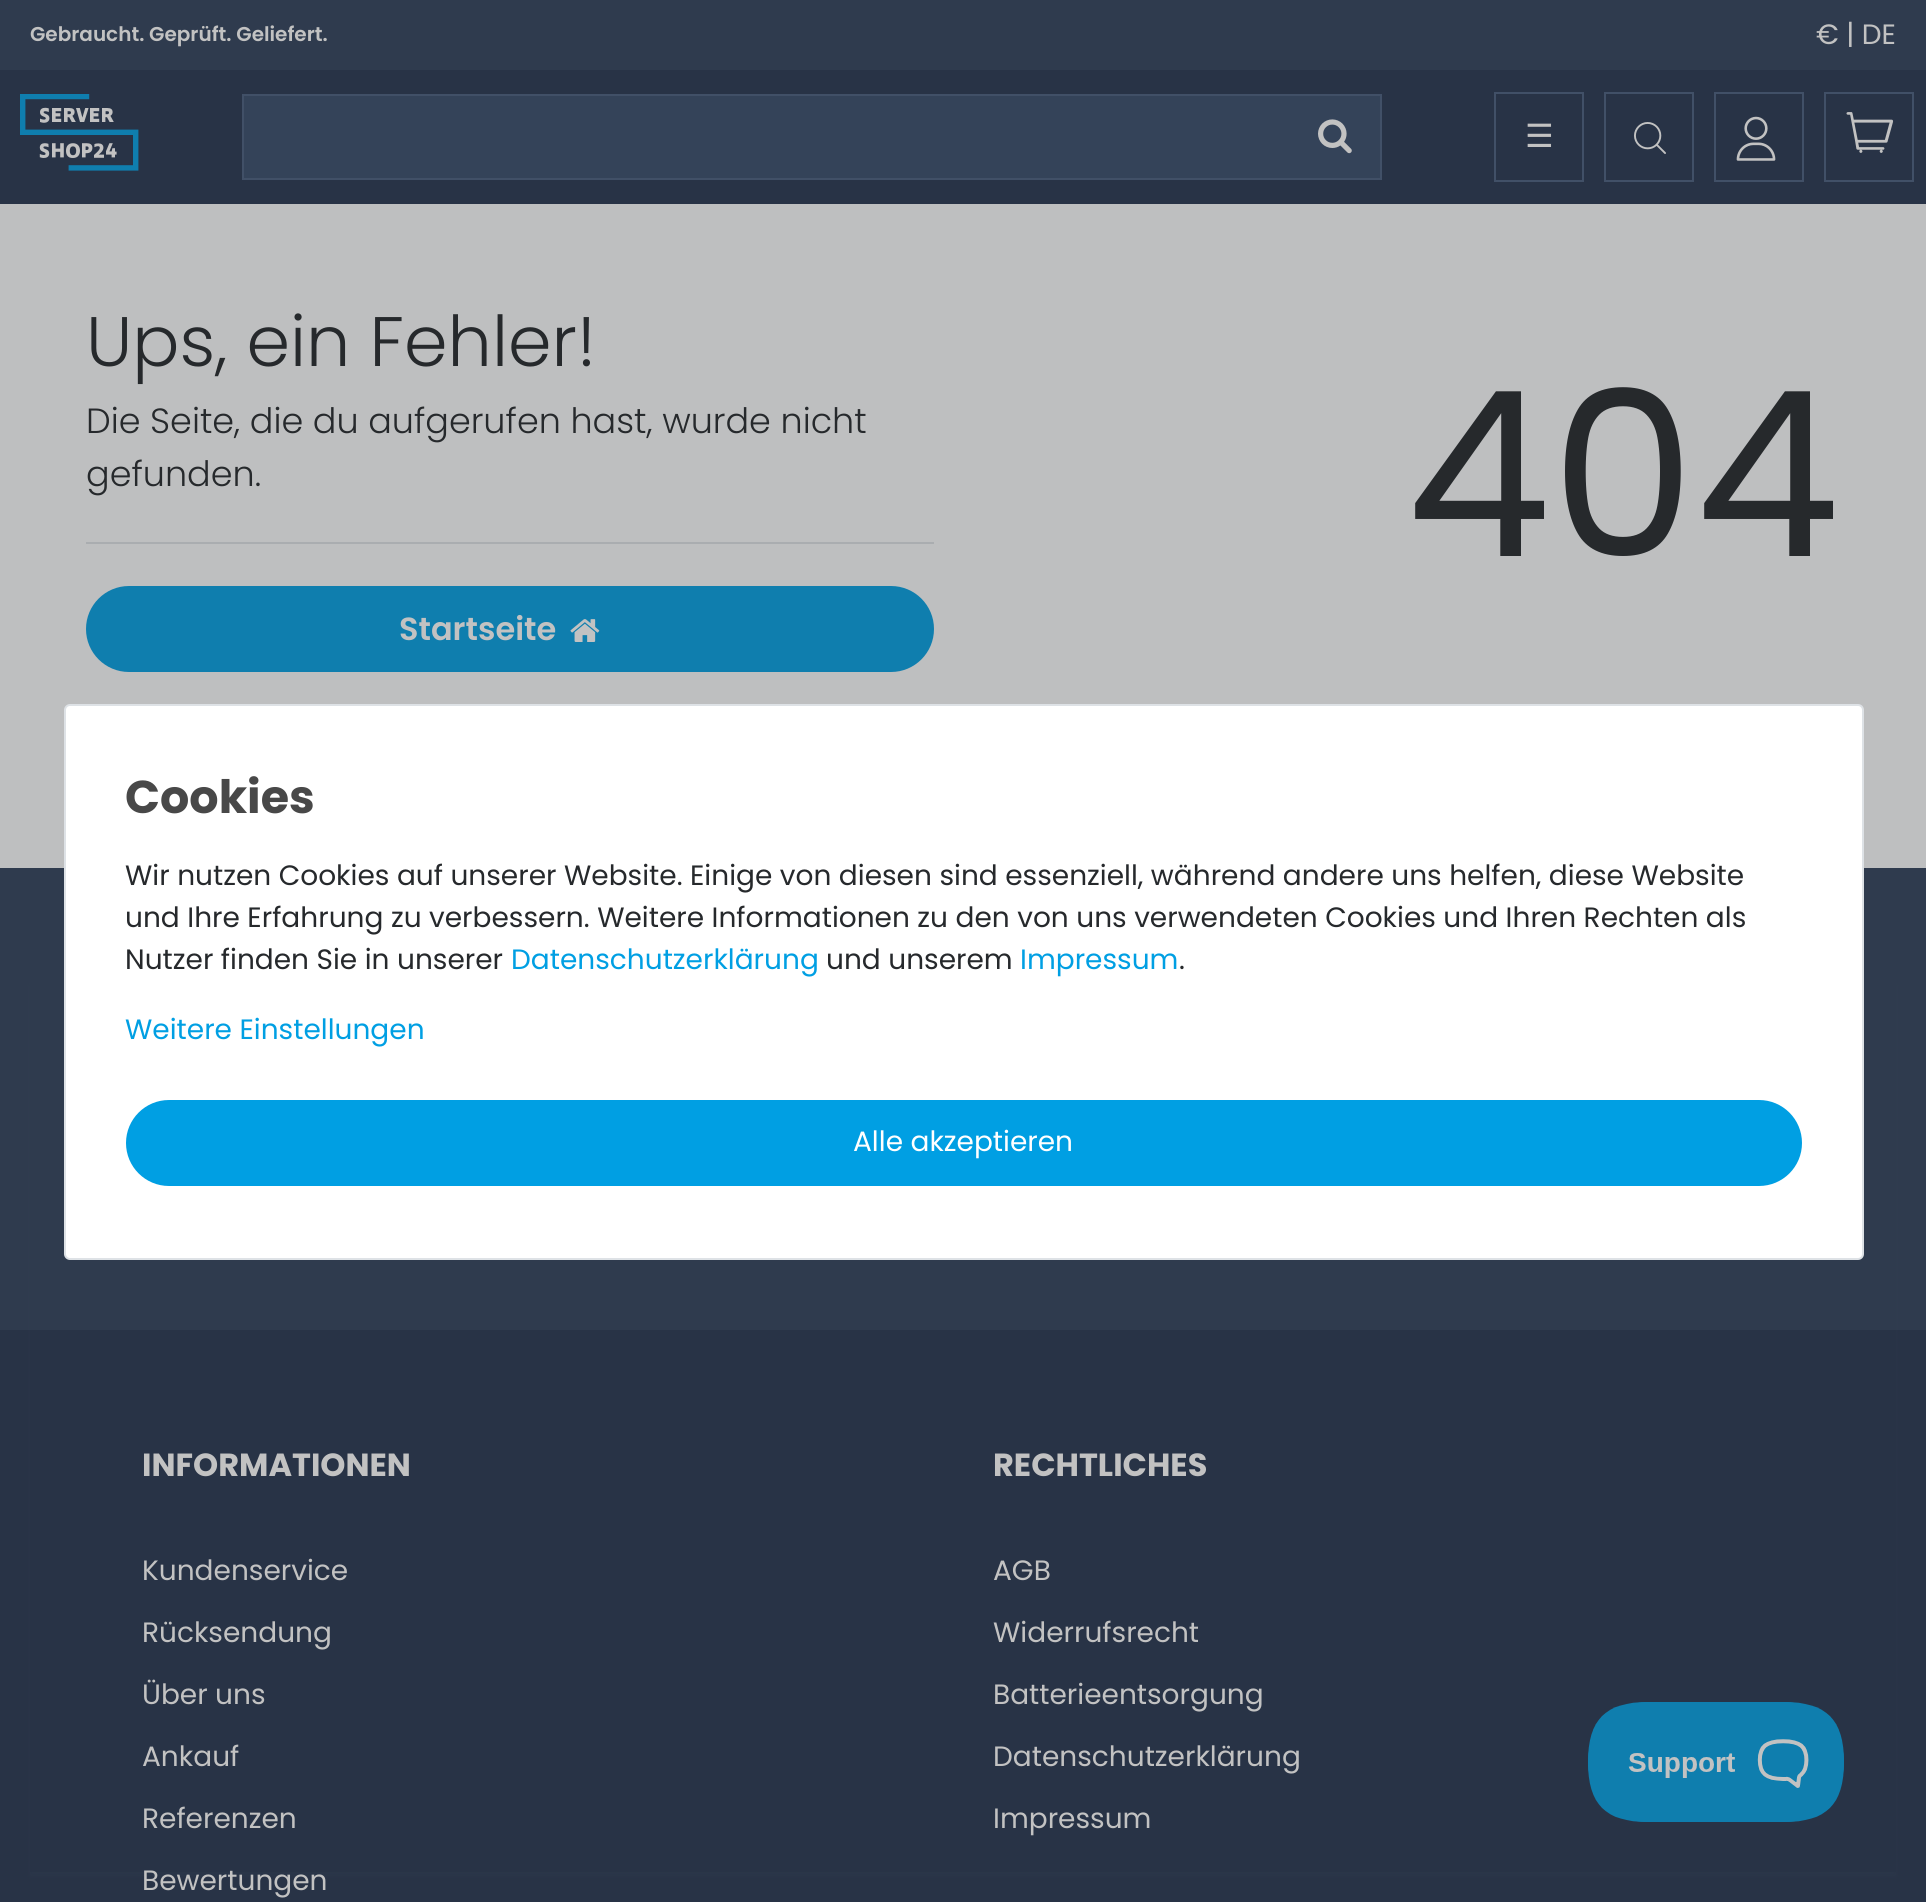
import math
import cairo

surface = cairo.ImageSurface(cairo.FORMAT_RGB24, 1926, 1902)
ctx = cairo.Context(surface)
options = cairo.FontOptions()
options.set_hint_metrics(cairo.HINT_METRICS_OFF)
options.set_hint_style(cairo.HINT_STYLE_NONE)
ctx.set_font_options(options)
ctx.set_miter_limit(4)


def set_color(code):
    ctx.set_source_rgb(*(v / 255 for v in bytes.fromhex(code[-6:])))


def draw_text(x, y, s, family, size, color, bold=False, italic=False):
    ctx.select_font_face(family, cairo.FONT_SLANT_ITALIC if italic else cairo.FONT_SLANT_NORMAL, cairo.FONT_WEIGHT_BOLD if bold else cairo.FONT_WEIGHT_NORMAL)
    ctx.set_font_size(size)
    set_color(color)
    ctx.move_to(x, y)
    ctx.show_text(s)


def fill_rect(x, y, w, h, color):
    set_color(color)
    ctx.rectangle(x, y, w, h)
    ctx.fill()


def rounded_rect(x, y, w, h, r):
    ctx.new_sub_path()
    for i, (u, v) in enumerate([(x + w - r, y + h - r), (x + r, y + h - r), (x + r, y + r), (x + w - r, y + r)]):
        ctx.arc(u, v, r, i * math.pi / 2, (i + 1) * math.pi / 2)
    ctx.close_path()


def draw_shadow(x, y, w, h, r, blur, alpha):
    ctx.push_group_with_content(cairo.CONTENT_ALPHA)
    ctx.set_operator(cairo.OPERATOR_SOURCE)
    for i in range(15, -16, -2):
        e = blur * i / 6
        if min(w, h) + 2 * e > 0:
            ctx.set_source_rgba(0, 0, 0, alpha * math.erfc((i - 1) / 8.5) / 2)
            rounded_rect(x - e, y - e, w + 2 * e, h + 2 * e, max(0, min(r + e + blur * .6, min(w, h) / 2 + e)))
            ctx.fill()
    ctx.mask(ctx.pop_group())


def draw_image(path, x, y, w, h):
    ctx.save()
    ctx.set_source_surface(cairo.ImageSurface.create_from_png(path), x, y)
    ctx.rectangle(x, y, w, h)
    ctx.fill()
    ctx.restore()


set_color("#bebfc0")
ctx.paint()
fill_rect(0, 70, 1926, 134, "#283346")
fill_rect(0, 0, 1926, 70, "#2f3b4e")
draw_text(30, 41, "Gebraucht. Geprüft. Geliefert.", "Poppins SemiBold", 20, "#c2c2c2")
draw_text(1816, 44, "€ | DE", "Poppins", 28, "#c2c2c2")
draw_image("assets/img1.png", 20, 94, 119, 77)
set_color("#344359")
ctx.rectangle(243, 95, 1138, 84)
ctx.fill_preserve()
set_color("#415067")
ctx.stroke()
draw_image("assets/img2.png", 1318, 119, 34, 35)
ctx.rectangle(1495, 93, 88, 88)
ctx.stroke()
draw_text(1525, 147, "☰", "DejaVu Sans", 32, "#c2c2c2")
ctx.rectangle(1605, 93, 88, 88)
set_color("#415067")
ctx.stroke()
draw_image("assets/img3.png", 1634, 122, 32, 32)
ctx.rectangle(1715, 93, 88, 88)
ctx.stroke()
draw_image("assets/img4.png", 1736, 116, 40, 45)
ctx.rectangle(1825, 93, 88, 88)
ctx.stroke()
draw_image("assets/img5.png", 1846, 112, 48, 41)
draw_text(86, 366, "Ups, ein Fehler!", "Poppins Light", 70, "#26292c")
draw_text(86, 433, "Die Seite, die du aufgerufen hast, wurde nicht", "Poppins Light", 35, "#26292c")
draw_text(86, 486, "gefunden.", "Poppins Light", 35, "#26292c")
fill_rect(86, 542, 848, 2, "#aaadb0")
set_color("#0f7eae")
rounded_rect(86, 586, 848, 86, 43)
ctx.fill()
draw_text(399, 640, "Startseite", "Poppins SemiBold", 32, "#c2c2c2")
draw_image("assets/img6.png", 570, 619, 30, 23)
draw_text(1406, 556, "404", "Poppins", 230, "#26292c")
fill_rect(0, 1330, 1926, 572, "#283346")
fill_rect(0, 868, 1926, 462, "#2f3b4e")
draw_image("assets/img7.png", 1588, 1702, 256, 120)
ctx.save()
ctx.set_fill_rule(cairo.FILL_RULE_EVEN_ODD)
ctx.new_path()
ctx.move_to(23, 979)
ctx.line_to(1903, 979)
ctx.line_to(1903, 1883)
ctx.line_to(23, 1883)
ctx.close_path()
ctx.move_to(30, 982)
ctx.line_to(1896, 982)
ctx.line_to(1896, 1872)
ctx.line_to(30, 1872)
ctx.close_path()
ctx.clip()
set_color("#364658")
draw_shadow(30, 986, 1866, 890, 0, 2, 0.15)
ctx.restore()
set_color("#ffffff")
rounded_rect(65, 705, 1798, 554, 5)
ctx.fill_preserve()
set_color("#dee2e6")
ctx.stroke()
draw_text(125, 813, "Cookies", "Poppins", 46, "#484848", bold=True)
draw_text(125, 885, "Wir nutzen Cookies auf unserer Website. Einige von diesen sind essenziell, während andere uns helfen, diese Website", "Poppins", 28, "#26292c")
draw_text(125, 927, "und Ihre Erfahrung zu verbessern. Weitere Informationen zu den von uns verwendeten Cookies und Ihren Rechten als", "Poppins", 28, "#26292c")
draw_text(125, 969, "Nutzer finden Sie in unserer", "Poppins", 28, "#26292c")
draw_text(511, 969, "Datenschutzerklärung", "Poppins", 28, "#009fe3")
draw_text(826, 969, "und unserem", "Poppins", 28, "#26292c")
draw_text(1020, 969, "Impressum", "Poppins", 28, "#009fe3")
draw_text(1179, 969, ".", "Poppins", 28, "#26292c")
draw_text(125, 1039, "Weitere Einstellungen", "Poppins", 28, "#009fe3")
rounded_rect(126, 1100, 1676, 86, 43)
ctx.fill()
draw_text(853, 1151, "Alle akzeptieren", "Poppins", 28, "#ffffff")
draw_text(142, 1476, "INFORMATIONEN", "Poppins", 32, "#c2c2c2", bold=True)
draw_text(142, 1580, "Kundenservice", "Poppins", 28, "#c2c2c2")
draw_text(142, 1642, "Rücksendung", "Poppins", 28, "#c2c2c2")
draw_text(142, 1704, "Über uns", "Poppins", 28, "#c2c2c2")
draw_text(142, 1766, "Ankauf", "Poppins", 28, "#c2c2c2")
draw_text(142, 1828, "Referenzen", "Poppins", 28, "#c2c2c2")
draw_text(142, 1890, "Bewertungen", "Poppins", 28, "#c2c2c2")
draw_text(993, 1476, "RECHTLICHES", "Poppins", 32, "#c2c2c2", bold=True)
draw_text(993, 1580, "AGB", "Poppins", 28, "#c2c2c2")
draw_text(993, 1642, "Widerrufsrecht", "Poppins", 28, "#c2c2c2")
draw_text(993, 1704, "Batterieentsorgung", "Poppins", 28, "#c2c2c2")
draw_text(993, 1766, "Datenschutzerklärung", "Poppins", 28, "#c2c2c2")
draw_text(993, 1828, "Impressum", "Poppins", 28, "#c2c2c2")
surface.write_to_png("output.png")
